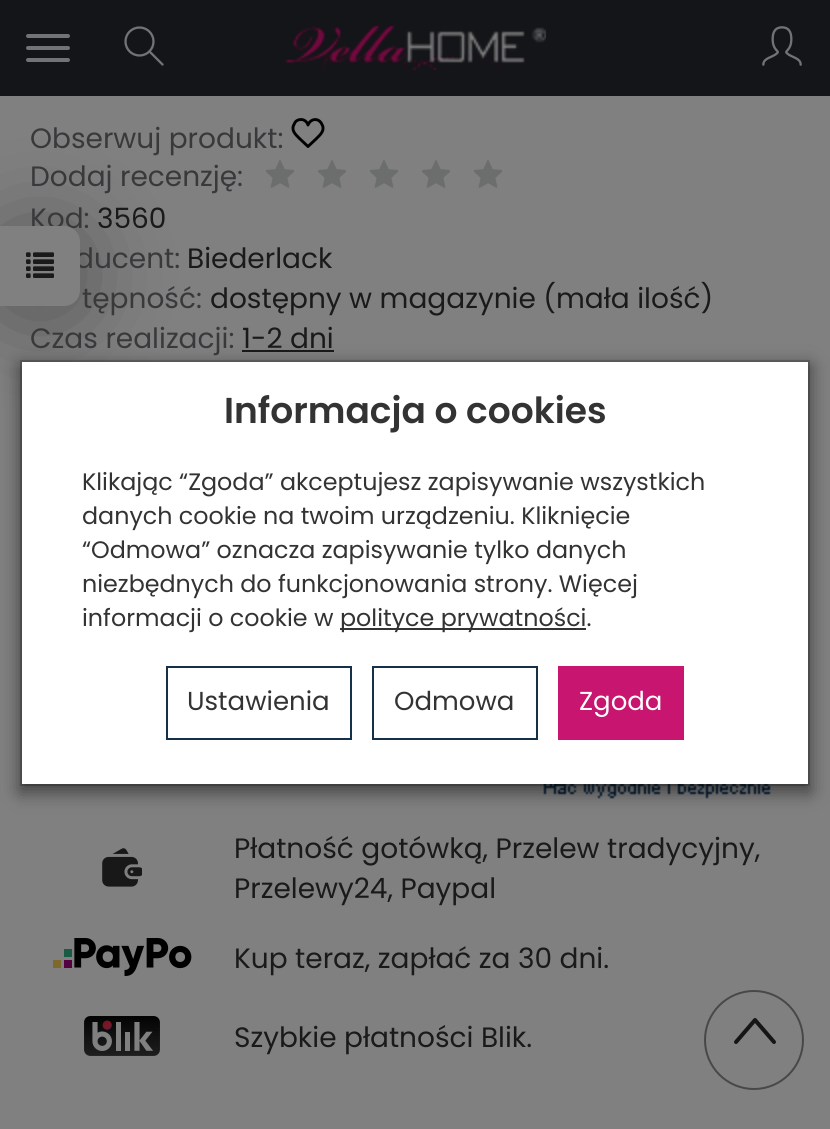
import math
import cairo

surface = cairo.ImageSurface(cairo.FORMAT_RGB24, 830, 1129)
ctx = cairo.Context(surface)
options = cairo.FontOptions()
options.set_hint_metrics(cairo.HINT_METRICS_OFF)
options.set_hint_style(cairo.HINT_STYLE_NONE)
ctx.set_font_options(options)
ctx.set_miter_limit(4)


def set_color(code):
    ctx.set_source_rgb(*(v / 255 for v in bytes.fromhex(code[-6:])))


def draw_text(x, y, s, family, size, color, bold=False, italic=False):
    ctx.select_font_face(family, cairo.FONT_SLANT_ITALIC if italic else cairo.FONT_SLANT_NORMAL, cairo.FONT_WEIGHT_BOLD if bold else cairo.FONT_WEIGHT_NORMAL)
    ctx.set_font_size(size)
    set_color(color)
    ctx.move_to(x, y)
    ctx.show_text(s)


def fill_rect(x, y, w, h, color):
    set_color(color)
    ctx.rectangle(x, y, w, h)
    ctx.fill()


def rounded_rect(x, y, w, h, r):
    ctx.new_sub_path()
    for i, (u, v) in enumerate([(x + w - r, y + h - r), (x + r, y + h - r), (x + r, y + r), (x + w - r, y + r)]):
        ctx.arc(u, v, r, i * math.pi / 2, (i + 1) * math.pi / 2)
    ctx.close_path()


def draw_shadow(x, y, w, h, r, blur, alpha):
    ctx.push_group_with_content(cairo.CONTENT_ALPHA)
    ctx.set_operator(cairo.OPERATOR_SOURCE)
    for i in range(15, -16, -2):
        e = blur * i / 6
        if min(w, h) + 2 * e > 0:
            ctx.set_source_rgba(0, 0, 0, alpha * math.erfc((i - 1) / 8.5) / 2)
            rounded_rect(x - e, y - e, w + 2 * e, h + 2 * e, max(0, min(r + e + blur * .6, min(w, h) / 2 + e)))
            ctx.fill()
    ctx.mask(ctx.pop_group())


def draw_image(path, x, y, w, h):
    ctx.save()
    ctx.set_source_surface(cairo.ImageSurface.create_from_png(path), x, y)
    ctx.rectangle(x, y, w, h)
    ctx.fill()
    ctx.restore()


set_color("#808080")
ctx.paint()
fill_rect(0, 0, 830, 96, "#131519")
set_color("#727377")
rounded_rect(26, 34, 44, 4, 2)
ctx.fill()
rounded_rect(26, 46, 44, 4, 2)
ctx.fill()
rounded_rect(26, 58, 44, 4, 2)
ctx.fill()
ctx.new_path()
ctx.move_to(149.5, 51.5)
ctx.line_to(162.5, 64.5)
ctx.set_line_width(2.3)
ctx.set_line_cap(cairo.LINE_CAP_ROUND)
ctx.set_line_join(cairo.LINE_JOIN_ROUND)
ctx.stroke()
ctx.arc(139.5, 41.5, 14, 0, 2 * math.pi)
ctx.set_line_cap(cairo.LINE_CAP_BUTT)
ctx.set_line_join(cairo.LINE_JOIN_MITER)
ctx.stroke()
draw_image("assets/img1.png", 285, 26, 261, 44)
draw_image("assets/img2.png", 762, 26, 40, 40)
set_color("#000000")
draw_shadow(0, 234, 80, 80, 16, 45, 0.35)
draw_text(30, 228, "Kod:", "Poppins", 28, "#39393b")
draw_text(75, 268, "ducent:", "Poppins", 28, "#39393b")
set_color("#808080")
ctx.new_path()
ctx.move_to(0, 226)
ctx.line_to(64, 226)
ctx.curve_to(73, 226, 80, 233, 80, 242)
ctx.line_to(80, 290)
ctx.curve_to(80, 299, 73, 306, 64, 306)
ctx.line_to(0, 306)
ctx.close_path()
ctx.fill()
draw_image("assets/img3.png", 26, 252, 28, 26)
draw_text(30, 148, "Obserwuj produkt:", "Poppins", 28, "#39393b")
ctx.new_path()
ctx.move_to(301, 119.5)
ctx.curve_to(298, 119.5, 295.5, 121, 294.5, 123.5)
ctx.curve_to(290.5, 130, 295, 134, 299.5, 138.5)
ctx.line_to(308, 146.5)
ctx.line_to(316.5, 138.5)
ctx.curve_to(321, 134, 325.5, 130, 321.5, 123.5)
ctx.curve_to(318, 117.5, 310.5, 118.5, 308, 125)
ctx.curve_to(307, 121.5, 304, 119.5, 301, 119.5)
ctx.close_path()
set_color("#000000")
ctx.set_line_width(2.9)
ctx.set_line_join(cairo.LINE_JOIN_ROUND)
ctx.stroke()
draw_text(30, 186, "Dodaj recenzję:", "Poppins", 28, "#39393b")
draw_image("assets/img4.png", 266, 160, 28, 28)
draw_image("assets/img4.png", 318, 160, 28, 28)
draw_image("assets/img4.png", 370, 160, 28, 28)
draw_image("assets/img4.png", 422, 160, 28, 28)
draw_image("assets/img4.png", 474, 160, 28, 28)
draw_text(97, 228, "3560", "Poppins", 28, "#1a1a1a")
draw_text(187, 268, "Biederlack", "Poppins", 28, "#1a1a1a")
draw_text(82, 308, "tępność:", "Poppins", 28, "#39393b")
draw_text(210, 308, "dostępny w magazynie (mała ilość)", "Poppins", 28, "#1a1a1a")
draw_text(30, 348, "Czas realizacji:", "Poppins", 28, "#39393b")
draw_text(242, 348, "1-2 dni", "Poppins", 28, "#1a1a1a")
fill_rect(242, 350, 92, 2, "#1a1a1a")
draw_image("assets/img5.png", 543, 784, 228, 15)
draw_image("assets/img6.png", 102, 848, 40, 39)
draw_text(234, 858, "Płatność gotówką, Przelew tradycyjny,", "Poppins", 28, "#1a1a1a")
draw_text(234, 898, "Przelewy24, Paypal", "Poppins", 28, "#1a1a1a")
draw_image("assets/img7.png", 53, 938, 139, 38)
draw_text(234, 968, "Kup teraz, zapłać za 30 dni.", "Poppins", 28, "#1a1a1a")
draw_image("assets/img8.png", 84, 1016, 76, 40)
draw_text(234, 1047, "Szybkie płatności Blik.", "Poppins", 28, "#1a1a1a")
set_color("#000000")
draw_shadow(20, 366, 790, 426, 0, 9, 0.5)
fill_rect(22, 362, 786, 422, "#ffffff")
ctx.rectangle(21, 361, 788, 424)
ctx.set_source_rgba(0, 0, 0, 0.2)
ctx.set_line_width(2)
ctx.set_line_join(cairo.LINE_JOIN_MITER)
ctx.stroke()
draw_text(224, 423, "Informacja o cookies", "Poppins SemiBold", 36, "#333333")
draw_text(82, 490, "Klikając “Zgoda” akceptujesz zapisywanie wszystkich", "Poppins", 23.8, "#333333")
draw_text(82, 524, "danych cookie na twoim urządzeniu. Kliknięcie", "Poppins", 23.8, "#333333")
draw_text(82, 558, "“Odmowa” oznacza zapisywanie tylko danych", "Poppins", 23.8, "#333333")
draw_text(82, 592, "niezbędnych do funkcjonowania strony. Więcej", "Poppins", 23.8, "#333333")
draw_text(82, 626, "informacji o cookie w", "Poppins", 23.8, "#333333")
fill_rect(340, 628, 246, 2, "#333333")
draw_text(340, 626, "polityce prywatności.", "Poppins", 23.8, "#333333")
ctx.rectangle(167, 667, 184, 72)
set_color("#153149")
ctx.stroke()
draw_text(187, 710, "Ustawienia", "Poppins", 26, "#333333")
ctx.rectangle(373, 667, 164, 72)
set_color("#153149")
ctx.stroke()
draw_text(394, 710, "Odmowa", "Poppins", 26, "#333333")
fill_rect(558, 666, 126, 74, "#c71570")
draw_text(579, 710, "Zgoda", "Poppins", 26, "#ffffff")
ctx.new_path()
ctx.arc(754, 1040, 49, 0, 2 * math.pi)
set_color("#484848")
ctx.stroke()
ctx.new_path()
ctx.move_to(736, 1042)
ctx.line_to(755, 1020)
ctx.line_to(774, 1042)
set_color("#151515")
ctx.set_line_width(4)
ctx.set_line_cap(cairo.LINE_CAP_ROUND)
ctx.set_line_join(cairo.LINE_JOIN_ROUND)
ctx.stroke()
surface.write_to_png("output.png")
